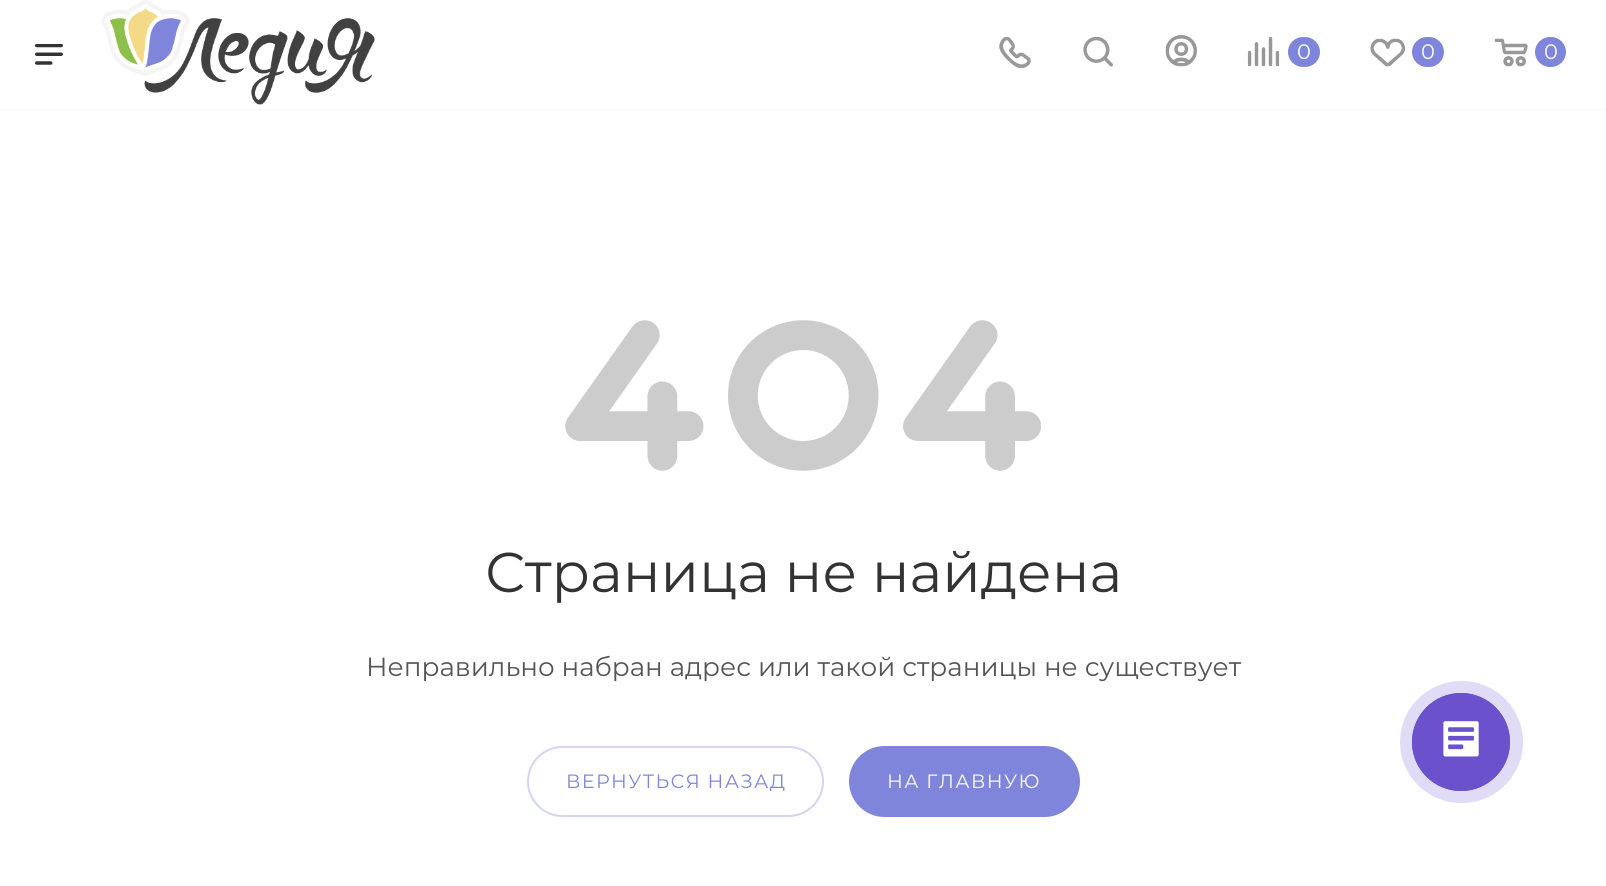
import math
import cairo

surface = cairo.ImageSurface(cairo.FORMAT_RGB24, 1606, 886)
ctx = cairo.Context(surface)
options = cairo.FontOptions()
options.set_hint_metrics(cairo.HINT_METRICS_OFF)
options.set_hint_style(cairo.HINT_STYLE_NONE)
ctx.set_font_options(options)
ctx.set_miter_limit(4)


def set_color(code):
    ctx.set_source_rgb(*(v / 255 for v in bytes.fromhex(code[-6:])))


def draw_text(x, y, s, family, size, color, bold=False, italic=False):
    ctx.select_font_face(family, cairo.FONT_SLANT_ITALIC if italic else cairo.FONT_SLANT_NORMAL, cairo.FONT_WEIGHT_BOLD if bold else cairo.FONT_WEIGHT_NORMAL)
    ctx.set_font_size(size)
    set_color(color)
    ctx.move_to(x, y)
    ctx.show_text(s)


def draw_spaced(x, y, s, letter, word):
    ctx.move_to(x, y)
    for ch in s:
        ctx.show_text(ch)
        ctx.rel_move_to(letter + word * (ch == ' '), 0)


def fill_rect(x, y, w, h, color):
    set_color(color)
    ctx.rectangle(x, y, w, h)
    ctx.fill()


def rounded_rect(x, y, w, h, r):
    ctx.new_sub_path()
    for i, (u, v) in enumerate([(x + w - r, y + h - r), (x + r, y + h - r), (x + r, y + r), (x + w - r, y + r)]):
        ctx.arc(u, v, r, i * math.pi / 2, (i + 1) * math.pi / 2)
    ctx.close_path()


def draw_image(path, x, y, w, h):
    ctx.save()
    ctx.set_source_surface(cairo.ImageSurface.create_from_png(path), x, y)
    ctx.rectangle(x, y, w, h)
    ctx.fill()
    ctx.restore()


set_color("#ffffff")
ctx.paint()
fill_rect(0, 109, 1606, 1, "#f8f8f8")
draw_image("assets/img1.png", 35, 44, 28, 21)
draw_image("assets/img2.png", 101, 0, 274, 105)
draw_image("assets/img3.png", 999, 37, 32, 31)
draw_image("assets/img4.png", 1083, 37, 30, 30)
draw_image("assets/img5.png", 1165, 35, 32, 32)
draw_image("assets/img6.png", 1247, 37, 33, 30)
set_color("#7f85da")
rounded_rect(1288, 37, 32, 30, 15)
ctx.fill()
draw_text(1297, 59, "0", "Montserrat", 21, "#ffffff")
draw_image("assets/img7.png", 1370, 38, 36, 29)
set_color("#7f85da")
rounded_rect(1412, 37, 32, 30, 15)
ctx.fill()
draw_text(1421, 59, "0", "Montserrat", 21, "#ffffff")
draw_image("assets/img8.png", 1494, 38, 34, 29)
set_color("#7f85da")
rounded_rect(1535, 37, 31, 30, 15)
ctx.fill()
draw_text(1544, 59, "0", "Montserrat", 21, "#ffffff")
draw_image("assets/img9.png", 565, 320, 476, 151)
draw_text(485, 592, "Страница не найдена", "Montserrat", 56, "#333333")
draw_text(366, 676, "Неправильно набран адрес или такой страницы не существует", "Montserrat", 26.25, "#555555")
rounded_rect(528, 747, 295, 69, 34.5)
set_color("#d3d5f2")
ctx.stroke()
ctx.set_font_size(19.25)
set_color("#7f85da")
draw_spaced(566, 788, "ВЕРНУТЬСЯ НАЗАД", 1.4, 0)
rounded_rect(850, 747, 229, 69, 34.5)
ctx.fill_preserve()
ctx.stroke()
set_color("#ffffff")
draw_spaced(887, 788, "НА ГЛАВНУЮ", 1.4, 0)
set_color("#e1dcf5")
rounded_rect(1400, 681, 123, 122, 61)
ctx.fill()
ctx.arc(1461, 742, 48.5, 0, 2 * math.pi)
set_color("#6b52cc")
ctx.set_line_width(1)
ctx.stroke()
ctx.arc(1461, 742, 49, 0, 2 * math.pi)
ctx.fill()
draw_image("assets/img10.png", 1443, 721, 36, 36)
surface.write_to_png("output.png")
